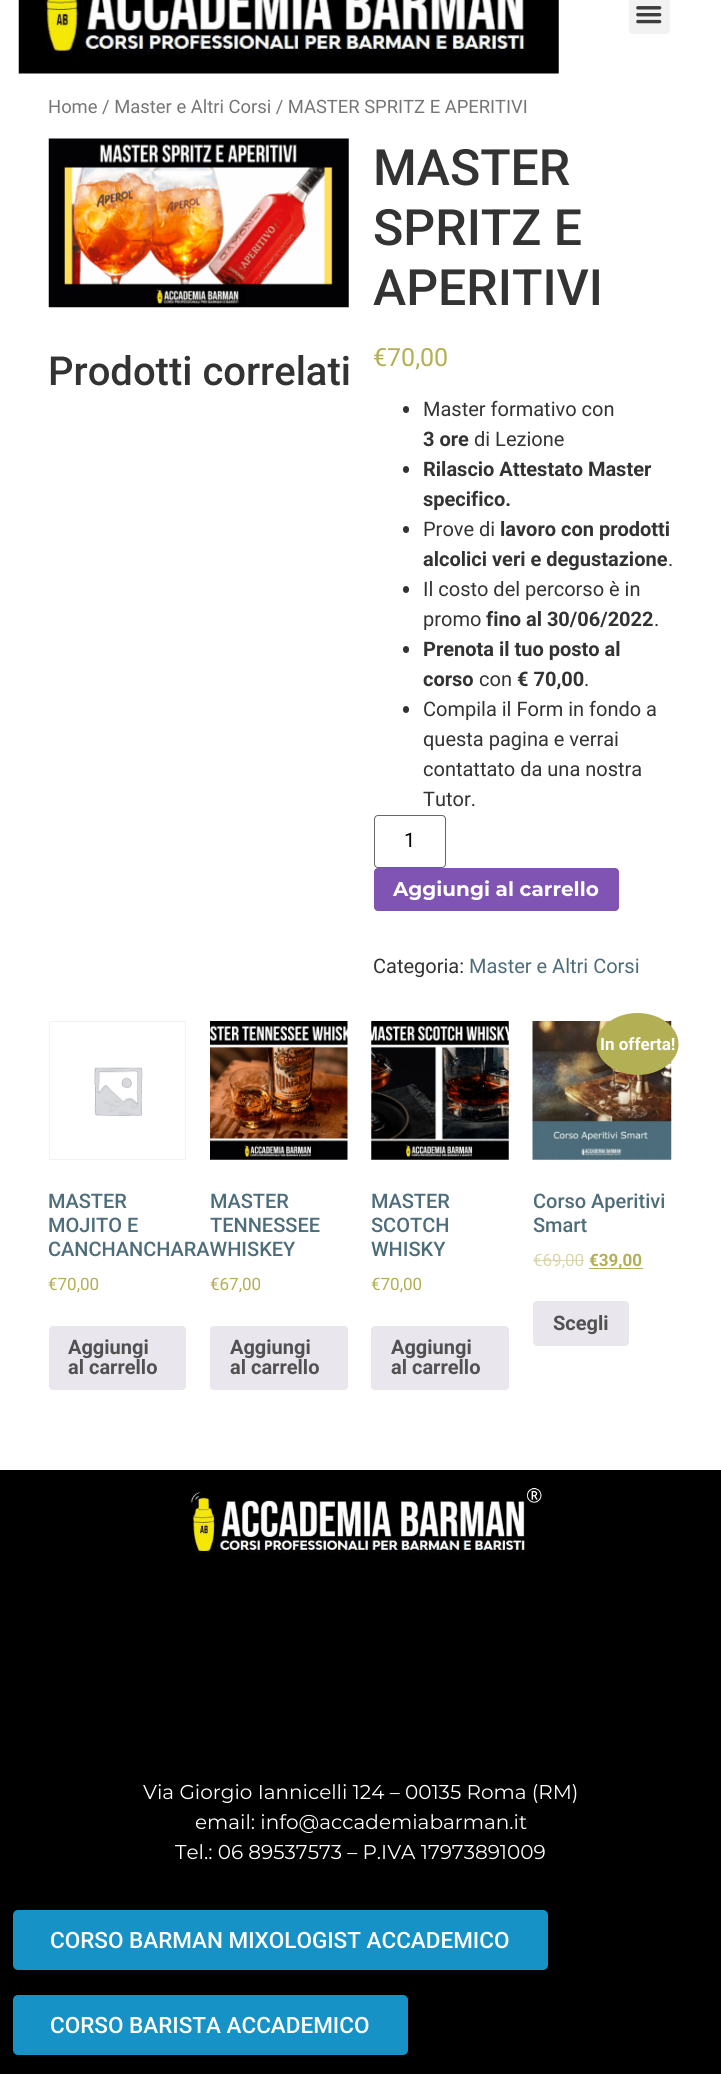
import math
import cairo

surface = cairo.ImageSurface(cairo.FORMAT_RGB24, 721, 2074)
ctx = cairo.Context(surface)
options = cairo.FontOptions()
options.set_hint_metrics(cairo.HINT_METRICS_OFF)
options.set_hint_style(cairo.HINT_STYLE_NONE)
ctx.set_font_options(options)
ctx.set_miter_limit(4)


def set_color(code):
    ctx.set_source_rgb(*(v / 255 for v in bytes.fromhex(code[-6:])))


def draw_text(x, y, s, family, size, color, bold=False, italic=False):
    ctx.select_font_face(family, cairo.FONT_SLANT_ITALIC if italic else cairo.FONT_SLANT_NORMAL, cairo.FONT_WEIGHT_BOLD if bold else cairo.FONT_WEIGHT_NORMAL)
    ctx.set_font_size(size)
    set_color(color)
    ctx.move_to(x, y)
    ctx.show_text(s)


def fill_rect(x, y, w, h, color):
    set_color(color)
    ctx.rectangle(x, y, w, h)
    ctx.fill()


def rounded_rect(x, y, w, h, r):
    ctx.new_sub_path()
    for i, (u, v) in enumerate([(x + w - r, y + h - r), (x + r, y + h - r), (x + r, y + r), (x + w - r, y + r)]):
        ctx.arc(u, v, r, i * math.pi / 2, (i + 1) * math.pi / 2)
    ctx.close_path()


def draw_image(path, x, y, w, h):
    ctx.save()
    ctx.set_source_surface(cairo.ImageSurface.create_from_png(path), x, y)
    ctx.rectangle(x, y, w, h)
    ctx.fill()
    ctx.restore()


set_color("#ffffff")
ctx.paint()
draw_image("assets/img1.png", 18, 0, 541, 74)
set_color("#f2f2f2")
rounded_rect(629, -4, 41, 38, 4)
ctx.fill()
draw_image("assets/img2.png", 636, 6, 26, 18)
draw_text(48, 113, "Home / Master e Altri Corsi / MASTER SPRITZ E APERITIVI", "Roboto", 18.4, "#767676")
draw_image("assets/img3.png", 48, 138, 301, 170)
draw_text(373, 185, "MASTER", "Roboto Medium", 50, "#333333")
draw_text(373, 245, "SPRITZ E", "Roboto Medium", 50, "#333333")
draw_text(373, 305, "APERITIVI", "Roboto Medium", 50, "#333333")
draw_text(373, 366, "€70,00", "Roboto", 25, "#b3af54")
set_color("#333333")
rounded_rect(403, 406, 6, 7, 3)
ctx.fill()
draw_text(423, 416, "Master formativo con", "Roboto", 20, "#333333")
draw_text(423, 446, "3 ore", "Roboto", 20, "#333333", bold=True)
draw_text(474, 446, "di Lezione", "Roboto", 20, "#333333")
rounded_rect(403, 466, 6, 7, 3)
ctx.fill()
draw_text(423, 476, "Rilascio Attestato Master", "Roboto", 20, "#333333", bold=True)
draw_text(423, 506, "specifico.", "Roboto", 20, "#333333", bold=True)
rounded_rect(403, 526, 6, 7, 3)
ctx.fill()
draw_text(423, 536, "Prove di", "Roboto", 20, "#333333")
draw_text(500, 536, "lavoro con prodotti", "Roboto", 20, "#333333", bold=True)
draw_text(423, 566, "alcolici veri e degustazione", "Roboto", 20, "#333333", bold=True)
draw_text(668, 566, ".", "Roboto", 20, "#333333")
rounded_rect(403, 586, 6, 7, 3)
ctx.fill()
draw_text(423, 596, "Il costo del percorso è in", "Roboto", 20, "#333333")
draw_text(423, 626, "promo", "Roboto", 20, "#333333")
draw_text(486, 626, "fino al 30/06/2022", "Roboto", 20, "#333333", bold=True)
draw_text(654, 626, ".", "Roboto", 20, "#333333")
rounded_rect(403, 646, 6, 7, 3)
ctx.fill()
draw_text(423, 656, "Prenota il tuo posto al", "Roboto", 20, "#333333", bold=True)
draw_text(423, 686, "corso", "Roboto", 20, "#333333", bold=True)
draw_text(479, 686, "con", "Roboto", 20, "#333333")
draw_text(517, 686, "€ 70,00", "Roboto", 20, "#333333", bold=True)
draw_text(584, 686, ".", "Roboto", 20, "#333333")
rounded_rect(403, 706, 6, 7, 3)
ctx.fill()
draw_text(423, 716, "Compila il Form in fondo a", "Roboto", 20, "#333333")
draw_text(423, 746, "questa pagina e verrai", "Roboto", 20, "#333333")
draw_text(423, 776, "contattato da una nostra", "Roboto", 20, "#333333")
draw_text(423, 806, "Tutor.", "Roboto", 20, "#333333")
rounded_rect(374.5, 815.5, 71, 52, 3.5)
set_color("#666666")
ctx.set_line_width(1)
ctx.stroke()
draw_text(404, 847, "1", "Roboto", 20, "#000000")
set_color("#7f54b3")
rounded_rect(374, 868, 245, 43, 4)
ctx.fill()
draw_text(393, 896, "Aggiungi al carrello", "Montserrat", 20, "#ffffff", bold=True)
draw_text(373, 973, "Categoria:", "Roboto", 20, "#333333")
draw_text(469, 973, "Master e Altri Corsi", "Roboto", 20, "#4e6d7a")
draw_text(48, 385, "Prodotti correlati", "Roboto Medium", 40, "#333333")
ctx.rectangle(49.5, 1021.5, 136, 138)
set_color("#f2f2f2")
ctx.stroke()
draw_image("assets/img4.png", 94, 1067, 49, 49)
draw_text(48, 1208, "MASTER", "Roboto Medium", 20, "#4e6d7a")
draw_text(48, 1232, "MOJITO E", "Roboto Medium", 20, "#4e6d7a")
draw_text(48, 1256, "CANCHANCHARAWHISKEY", "Roboto Medium", 20, "#4e6d7a")
draw_text(48, 1290, "€70,00", "Roboto", 17, "#b3af54")
set_color("#e9e6ed")
rounded_rect(49, 1326, 137, 64, 4)
ctx.fill()
draw_text(68, 1354, "Aggiungi", "Roboto", 20, "#515151", bold=True)
draw_text(68, 1374, "al carrello", "Roboto", 20, "#515151", bold=True)
draw_image("assets/img5.png", 532, 1021, 140, 139)
set_color("#b3af54")
ctx.new_path()
ctx.move_to(637.5, 1013)
ctx.curve_to(660, 1013, 678.5, 1027, 678.5, 1044)
ctx.curve_to(678.5, 1061, 660, 1075, 637.5, 1075)
ctx.curve_to(615, 1075, 596.5, 1061, 596.5, 1044)
ctx.curve_to(596.5, 1027, 615, 1013, 637.5, 1013)
ctx.close_path()
ctx.fill()
draw_text(600, 1050, "In offerta!", "Roboto", 17, "#ffffff", bold=True)
draw_text(533, 1208, "Corso Aperitivi", "Roboto Medium", 20, "#4e6d7a")
draw_text(533, 1232, "Smart", "Roboto Medium", 20, "#4e6d7a")
draw_text(533, 1266, "€69,00", "Roboto", 17, "#d9d7aa")
fill_rect(533, 1260, 51, 1, "#d9d7aa")
fill_rect(589, 1268, 54, 1, "#b3af54")
draw_text(589, 1266, "€39,00", "Roboto", 17, "#b3af54", bold=True)
set_color("#e9e6ed")
rounded_rect(533, 1301, 96, 45, 4)
ctx.fill()
draw_text(553, 1330, "Scegli", "Roboto", 20, "#515151", bold=True)
draw_image("assets/img6.png", 210, 1021, 138, 139)
draw_text(210, 1208, "MASTER", "Roboto Medium", 20, "#4e6d7a")
draw_text(210, 1232, "TENNESSEE", "Roboto Medium", 20, "#4e6d7a")
draw_text(210, 1290, "€67,00", "Roboto", 17, "#b3af54")
set_color("#e9e6ed")
rounded_rect(210, 1326, 138, 64, 4)
ctx.fill()
draw_text(230, 1354, "Aggiungi", "Roboto", 20, "#515151", bold=True)
draw_text(230, 1374, "al carrello", "Roboto", 20, "#515151", bold=True)
draw_image("assets/img7.png", 371, 1021, 138, 139)
draw_text(371, 1208, "MASTER", "Roboto Medium", 20, "#4e6d7a")
draw_text(371, 1232, "SCOTCH", "Roboto Medium", 20, "#4e6d7a")
draw_text(371, 1256, "WHISKY", "Roboto Medium", 20, "#4e6d7a")
draw_text(371, 1290, "€70,00", "Roboto", 17, "#b3af54")
set_color("#e9e6ed")
rounded_rect(371, 1326, 138, 64, 4)
ctx.fill()
draw_text(391, 1354, "Aggiungi", "Roboto", 20, "#515151", bold=True)
draw_text(391, 1374, "al carrello", "Roboto", 20, "#515151", bold=True)
fill_rect(0, 1470, 721, 604, "#000000")
draw_image("assets/img8.png", 191, 1487, 351, 72)
draw_text(143, 1799, "Via Giorgio Iannicelli 124 – 00135 Roma (RM)", "Montserrat", 20, "#ffffff")
draw_text(195, 1829, "email: info@accademiabarman.it", "Montserrat", 20, "#ffffff")
draw_text(175, 1859, "Tel.: 06 89537573 – P.IVA 17973891009", "Montserrat", 20, "#ffffff")
set_color("#1692c6")
rounded_rect(13, 1910, 535, 60, 5)
ctx.fill()
draw_text(50, 1948, "CORSO BARMAN MIXOLOGIST ACCADEMICO", "Roboto Medium", 22.5, "#ffffff")
set_color("#1692c6")
rounded_rect(13, 1995, 395, 60, 5)
ctx.fill()
draw_text(50, 2033, "CORSO BARISTA ACCADEMICO", "Roboto Medium", 22.5, "#ffffff")
surface.write_to_png("output.png")
